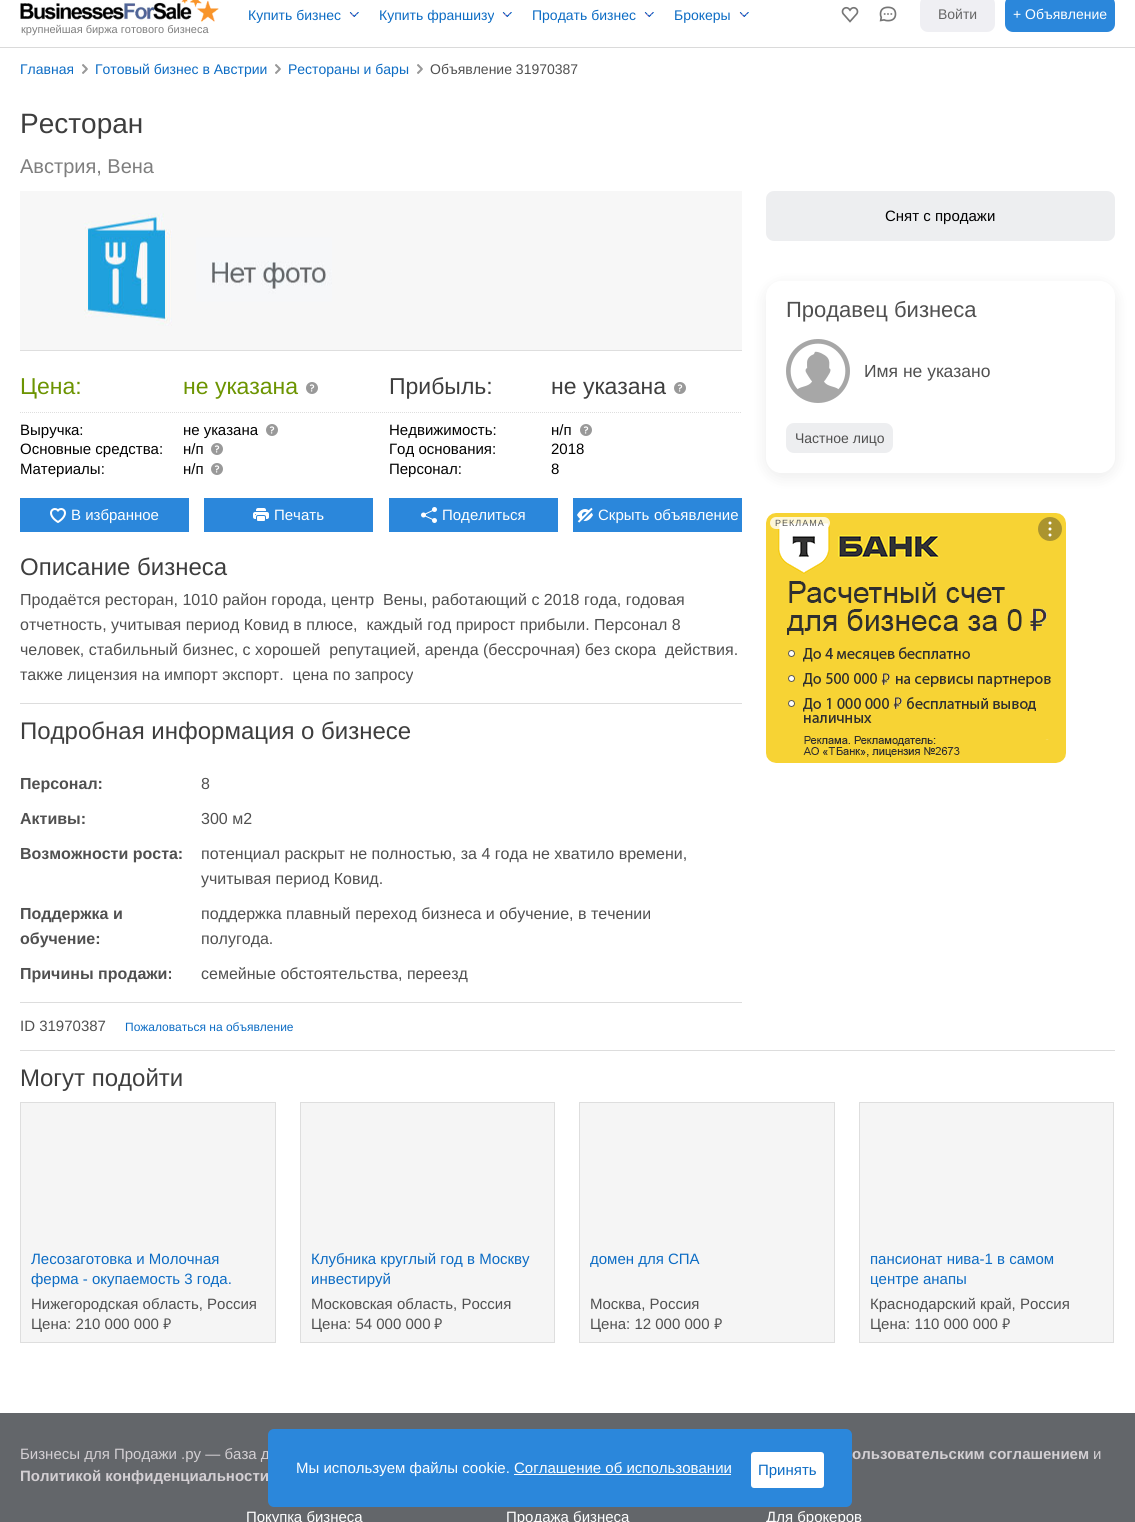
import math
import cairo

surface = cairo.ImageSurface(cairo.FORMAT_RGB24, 1135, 1522)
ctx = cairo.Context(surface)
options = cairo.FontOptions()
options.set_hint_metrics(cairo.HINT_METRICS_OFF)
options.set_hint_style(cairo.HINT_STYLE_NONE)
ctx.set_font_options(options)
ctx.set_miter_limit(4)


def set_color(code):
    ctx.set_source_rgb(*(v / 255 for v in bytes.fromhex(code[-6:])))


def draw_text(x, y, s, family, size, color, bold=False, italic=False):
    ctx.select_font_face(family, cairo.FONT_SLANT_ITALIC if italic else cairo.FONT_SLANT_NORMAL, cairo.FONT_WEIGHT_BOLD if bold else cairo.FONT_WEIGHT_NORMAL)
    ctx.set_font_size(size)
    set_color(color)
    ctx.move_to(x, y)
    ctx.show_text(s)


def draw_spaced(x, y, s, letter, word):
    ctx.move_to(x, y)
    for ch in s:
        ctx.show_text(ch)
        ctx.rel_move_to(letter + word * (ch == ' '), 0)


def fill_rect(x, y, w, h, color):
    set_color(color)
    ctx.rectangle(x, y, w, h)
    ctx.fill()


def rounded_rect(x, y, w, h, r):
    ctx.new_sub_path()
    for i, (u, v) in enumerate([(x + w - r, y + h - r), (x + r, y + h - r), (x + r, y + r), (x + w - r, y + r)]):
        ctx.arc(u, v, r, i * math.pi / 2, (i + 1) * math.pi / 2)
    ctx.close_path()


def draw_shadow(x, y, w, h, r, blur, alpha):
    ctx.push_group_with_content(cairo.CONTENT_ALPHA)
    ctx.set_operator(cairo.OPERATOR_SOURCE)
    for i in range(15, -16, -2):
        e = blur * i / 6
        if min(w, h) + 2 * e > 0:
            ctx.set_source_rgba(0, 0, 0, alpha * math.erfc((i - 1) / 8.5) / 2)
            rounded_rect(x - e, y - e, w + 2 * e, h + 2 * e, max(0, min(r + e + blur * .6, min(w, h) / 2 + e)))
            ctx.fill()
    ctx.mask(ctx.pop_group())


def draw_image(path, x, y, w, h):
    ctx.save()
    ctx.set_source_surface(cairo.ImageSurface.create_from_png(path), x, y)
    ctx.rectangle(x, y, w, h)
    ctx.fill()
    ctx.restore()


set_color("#ffffff")
ctx.paint()
fill_rect(0, 47, 1135, 1, "#dadada")
draw_text(248, 20, "Купить бизнес", "Liberation Sans", 14, "#0c6cc4")
draw_image("assets/img1.png", 349, 12, 10, 5)
draw_text(379, 20, "Купить франшизу", "Liberation Sans", 14, "#0c6cc4")
draw_image("assets/img1.png", 502, 12, 10, 5)
draw_text(532, 20, "Продать бизнес", "Liberation Sans", 14, "#0c6cc4")
draw_image("assets/img1.png", 644, 12, 10, 5)
draw_text(674, 20, "Брокеры", "Liberation Sans", 14, "#0c6cc4")
draw_image("assets/img1.png", 739, 12, 10, 5)
draw_image("assets/img2.png", 20, 0, 199, 22)
draw_text(21, 33, "крупнейшая биржа готового бизнеса", "Liberation Sans", 11, "#7e7e7e")
draw_image("assets/img3.png", 841, 6, 18, 17)
draw_image("assets/img4.png", 879, 6, 18, 16)
set_color("#efeff3")
rounded_rect(920, -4, 75, 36, 8)
ctx.fill()
draw_text(938, 19, "Войти", "Liberation Sans", 14, "#666666")
set_color("#2b87db")
rounded_rect(1005, -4, 110, 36, 8)
ctx.fill()
draw_text(1013, 19, "+ Объявление", "Liberation Sans", 14, "#ffffff")
draw_text(20, 74, "Главная", "Liberation Sans", 14, "#0c6cc4")
draw_image("assets/img5.png", 82, 64, 6, 10)
draw_text(95, 74, "Готовый бизнес в Австрии", "Liberation Sans", 14, "#0c6cc4")
draw_image("assets/img5.png", 275, 64, 6, 10)
draw_text(288, 74, "Рестораны и бары", "Liberation Sans", 14, "#0c6cc4")
draw_image("assets/img5.png", 417, 64, 6, 10)
draw_text(430, 74, "Объявление 31970387", "Liberation Sans", 14, "#505050")
draw_text(20, 133, "Ресторан", "Liberation Sans", 28, "#3e3e3e")
draw_text(20, 173, "Австрия, Вена", "Liberation Sans", 20, "#7e7e7e")
fill_rect(573, 498, 169, 34, "#2b87db")
ctx.save()
ctx.set_fill_rule(cairo.FILL_RULE_EVEN_ODD)
ctx.new_path()
ctx.move_to(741, 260)
ctx.line_to(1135, 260)
ctx.line_to(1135, 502)
ctx.line_to(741, 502)
ctx.close_path()
ctx.move_to(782, 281)
ctx.line_to(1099, 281)
ctx.curve_to(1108, 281, 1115, 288, 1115, 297)
ctx.line_to(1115, 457)
ctx.curve_to(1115, 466, 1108, 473, 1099, 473)
ctx.line_to(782, 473)
ctx.curve_to(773, 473, 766, 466, 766, 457)
ctx.line_to(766, 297)
ctx.curve_to(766, 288, 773, 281, 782, 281)
ctx.close_path()
ctx.clip()
set_color("#000000")
draw_shadow(766, 285, 349, 192, 16, 8, 0.08)
ctx.restore()
fill_rect(20, 191, 722, 159, "#f7f7f7")
draw_image("assets/img6.png", 84, 213, 248, 113)
fill_rect(20, 350, 722, 1, "#dedede")
ctx.new_path()
ctx.move_to(20, 412.5)
ctx.line_to(742, 412.5)
ctx.set_line_width(1)
ctx.set_dash([1, 1])
ctx.stroke()
draw_text(20, 394, "Цена:", "Liberation Sans", 23, "#6c9401")
draw_text(183, 394, "не указана", "Liberation Sans", 23, "#6c9401")
draw_image("assets/img7.png", 306, 382, 12, 12)
draw_text(389, 394, "Прибыль:", "Liberation Sans", 23, "#3e3e3e")
draw_text(551, 394, "не указана", "Liberation Sans", 23, "#3e3e3e")
draw_image("assets/img7.png", 674, 382, 12, 12)
draw_text(20, 435, "Выручка:", "Liberation Sans", 15, "#000000")
draw_text(183, 435, "не указана", "Liberation Sans", 15, "#000000")
draw_image("assets/img7.png", 266, 424, 12, 12)
draw_text(20, 454, "Основные средства:", "Liberation Sans", 15, "#000000")
draw_text(183, 454, "н/п", "Liberation Sans", 15, "#000000")
draw_image("assets/img7.png", 211, 443, 12, 12)
draw_text(20, 474, "Материалы:", "Liberation Sans", 15, "#000000")
draw_text(183, 474, "н/п", "Liberation Sans", 15, "#000000")
draw_image("assets/img7.png", 211, 463, 12, 12)
draw_text(389, 435, "Недвижимость:", "Liberation Sans", 15, "#000000")
draw_text(551, 435, "н/п", "Liberation Sans", 15, "#000000")
draw_image("assets/img7.png", 580, 424, 12, 12)
draw_text(389, 454, "Год основания:", "Liberation Sans", 15, "#000000")
draw_text(551, 454, "2018", "Liberation Sans", 15, "#000000")
draw_text(389, 474, "Персонал:", "Liberation Sans", 15, "#000000")
draw_text(551, 474, "8", "Liberation Sans", 15, "#000000")
fill_rect(20, 498, 169, 34, "#2b87db")
draw_image("assets/img8.png", 50, 508, 16, 15)
draw_text(71, 520, "В избранное", "Liberation Sans", 15, "#ffffff")
fill_rect(204, 498, 169, 34, "#2b87db")
draw_image("assets/img9.png", 253, 508, 16, 13)
draw_text(274, 520, "Печать", "Liberation Sans", 15, "#ffffff")
fill_rect(389, 498, 169, 34, "#2b87db")
draw_image("assets/img10.png", 421, 507, 16, 16)
draw_text(442, 520, "Поделиться", "Liberation Sans", 15, "#ffffff")
draw_image("assets/img11.png", 577, 507, 16, 16)
draw_text(598, 520, "Скрыть", "Liberation Sans", 15, "#ffffff")
draw_text(654, 520, "объявление", "Liberation Sans", 15, "#ffffff")
draw_text(20, 575, "Описание бизнеса", "Liberation Sans", 24, "#3e3e3e")
draw_text(20, 605, "Продаётся ресторан, 1010 район города, центр  Вены, работающий с 2018 года, годовая", "Liberation Sans", 16, "#505050")
draw_text(20, 630, "отчетность, учитывая период Ковид в плюсе,  каждый год прирост прибыли. Персонал 8", "Liberation Sans", 16, "#505050")
draw_text(20, 655, "человек, стабильный бизнес, с хорошей  репутацией, аренда (бессрочная) без скора  действия.", "Liberation Sans", 16, "#505050")
draw_text(20, 680, "также лицензия на импорт экспорт.  цена по запросу", "Liberation Sans", 16, "#505050")
fill_rect(20, 703, 722, 1, "#dddddd")
draw_text(20, 739, "Подробная информация о бизнесе", "Liberation Sans", 24, "#3e3e3e")
draw_text(20, 789, "Персонал:", "Liberation Sans", 16, "#505050", bold=True)
draw_text(201, 789, "8", "Liberation Sans", 16, "#505050")
draw_text(20, 824, "Активы:", "Liberation Sans", 16, "#505050", bold=True)
draw_text(201, 824, "300 м2", "Liberation Sans", 16, "#505050")
draw_text(20, 859, "Возможности роста:", "Liberation Sans", 16, "#505050", bold=True)
draw_text(201, 859, "потенциал раскрыт не полностью, за 4 года не хватило времени,", "Liberation Sans", 16, "#505050")
draw_text(201, 884, "учитывая период Ковид.", "Liberation Sans", 16, "#505050")
draw_text(20, 919, "Поддержка и", "Liberation Sans", 16, "#505050", bold=True)
draw_text(20, 944, "обучение:", "Liberation Sans", 16, "#505050", bold=True)
draw_text(201, 919, "поддержка плавный переход бизнеса и обучение, в течении", "Liberation Sans", 16, "#505050")
draw_text(201, 944, "полугода.", "Liberation Sans", 16, "#505050")
draw_text(20, 979, "Причины продажи:", "Liberation Sans", 16, "#505050", bold=True)
draw_text(201, 979, "семейные обстоятельства, переезд", "Liberation Sans", 16, "#505050")
set_color("#edeef0")
rounded_rect(766, 191, 349, 50, 8)
ctx.fill()
draw_text(885, 221, "Снят с продажи", "Liberation Sans", 15, "#000000")
draw_text(786, 317, "Продавец бизнеса", "Liberation Sans", 22, "#505050")
draw_image("assets/img12.png", 786, 339, 64, 64)
draw_text(864, 377, "Имя не указано", "Liberation Sans", 17.5, "#505050")
set_color("#edeef0")
rounded_rect(786, 423, 107, 30, 8)
ctx.fill()
draw_text(795, 443, "Частное лицо", "Liberation Sans", 14, "#505050")
draw_image("assets/img13.png", 766, 513, 300, 250)
ctx.set_source_rgba(1, 1, 1, 0.8)
rounded_rect(770, 517, 60, 12, 6)
ctx.fill()
ctx.set_font_size(9)
set_color("#575754")
draw_spaced(775, 526, "РЕКЛАМА", 1, 0)
set_color("#ab942f")
ctx.new_path()
ctx.arc(1050, 529, 12, 0, 2 * math.pi)
ctx.fill()
set_color("#ffffff")
ctx.arc(1050, 523, 1.5, 0, 2 * math.pi)
ctx.fill()
ctx.arc(1050, 529, 1.5, 0, 2 * math.pi)
ctx.fill()
ctx.arc(1050, 535, 1.5, 0, 2 * math.pi)
ctx.fill()
fill_rect(20, 1002, 722, 1, "#dddddd")
draw_text(20, 1031, "ID 31970387", "Liberation Sans", 15, "#505050")
draw_text(125, 1031, "Пожаловаться на объявление", "Liberation Sans", 12, "#0c6cc4")
fill_rect(20, 1050, 1095, 1, "#dddddd")
draw_text(20, 1086, "Могут подойти", "Liberation Sans", 24, "#3e3e3e")
set_color("#f5f5f5")
ctx.rectangle(20.5, 1102.5, 255, 240)
ctx.fill_preserve()
set_color("#dedede")
ctx.set_dash([])
ctx.stroke()
draw_text(31, 1264, "Лесозаготовка и Молочная", "Liberation Sans", 15, "#0c6cc4")
draw_text(31, 1284, "ферма - окупаемость 3 года.", "Liberation Sans", 15, "#0c6cc4")
draw_text(31, 1309, "Нижегородская область, Россия", "Liberation Sans", 15, "#505050")
draw_text(31, 1329, "Цена: 210 000 000", "Liberation Sans", 15, "#505050")
draw_text(163, 1329, "₽", "PT Sans", 15, "#505050")
set_color("#f5f5f5")
ctx.rectangle(300.5, 1102.5, 254, 240)
ctx.fill_preserve()
set_color("#dedede")
ctx.stroke()
draw_text(311, 1264, "Клубника круглый год в Москву", "Liberation Sans", 15, "#0c6cc4")
draw_text(311, 1284, "инвестируй", "Liberation Sans", 15, "#0c6cc4")
draw_text(311, 1309, "Московская область, Россия", "Liberation Sans", 15, "#505050")
draw_text(311, 1329, "Цена: 54 000 000", "Liberation Sans", 15, "#505050")
draw_text(434, 1329, "₽", "PT Sans", 15, "#505050")
set_color("#f5f5f5")
ctx.rectangle(579.5, 1102.5, 255, 240)
ctx.fill_preserve()
set_color("#dedede")
ctx.stroke()
draw_text(590, 1264, "домен для СПА", "Liberation Sans", 15, "#0c6cc4")
draw_text(590, 1309, "Москва, Россия", "Liberation Sans", 15, "#505050")
draw_text(590, 1329, "Цена: 12 000 000", "Liberation Sans", 15, "#505050")
draw_text(714, 1329, "₽", "PT Sans", 15, "#505050")
set_color("#f5f5f5")
ctx.rectangle(859.5, 1102.5, 254, 240)
ctx.fill_preserve()
set_color("#dedede")
ctx.stroke()
draw_text(870, 1264, "пансионат нива-1 в самом", "Liberation Sans", 15, "#0c6cc4")
draw_text(870, 1284, "центре анапы", "Liberation Sans", 15, "#0c6cc4")
draw_text(870, 1309, "Краснодарский край, Россия", "Liberation Sans", 15, "#505050")
draw_text(870, 1329, "Цена: 110 000 000", "Liberation Sans", 15, "#505050")
draw_text(1002, 1329, "₽", "PT Sans", 15, "#505050")
fill_rect(0, 1413, 1135, 109, "#63666a")
draw_text(20, 1459, "Бизнесы для Продажи .ру — база д", "Liberation Sans", 15, "#d3cfd3")
draw_text(852, 1459, "ользовательским соглашением", "Liberation Sans", 15, "#d3cfd3", bold=True)
draw_text(1093, 1459, "и", "Liberation Sans", 15, "#d3cfd3")
draw_text(20, 1481, "Политикой конфиденциальности", "Liberation Sans", 15, "#d3cfd3", bold=True)
draw_text(246, 1522, "Покупка бизнеса", "Liberation Sans", 15, "#ffffff")
draw_text(506, 1522, "Продажа бизнеса", "Liberation Sans", 15, "#ffffff")
draw_text(766, 1522, "Для брокеров", "Liberation Sans", 15, "#ffffff")
set_color("#2b87db")
rounded_rect(268, 1429, 584, 78, 6)
ctx.fill()
draw_text(296, 1473, "Мы используем файлы cookie. Соглашение об использовании", "Liberation Sans", 15, "#ffffff")
fill_rect(514, 1474, 217, 1, "#ffffff")
rounded_rect(751, 1452, 73, 36, 3)
ctx.fill()
draw_text(758, 1475, "Принять", "Liberation Sans", 15, "#0c6cc4")
surface.write_to_png("output.png")
